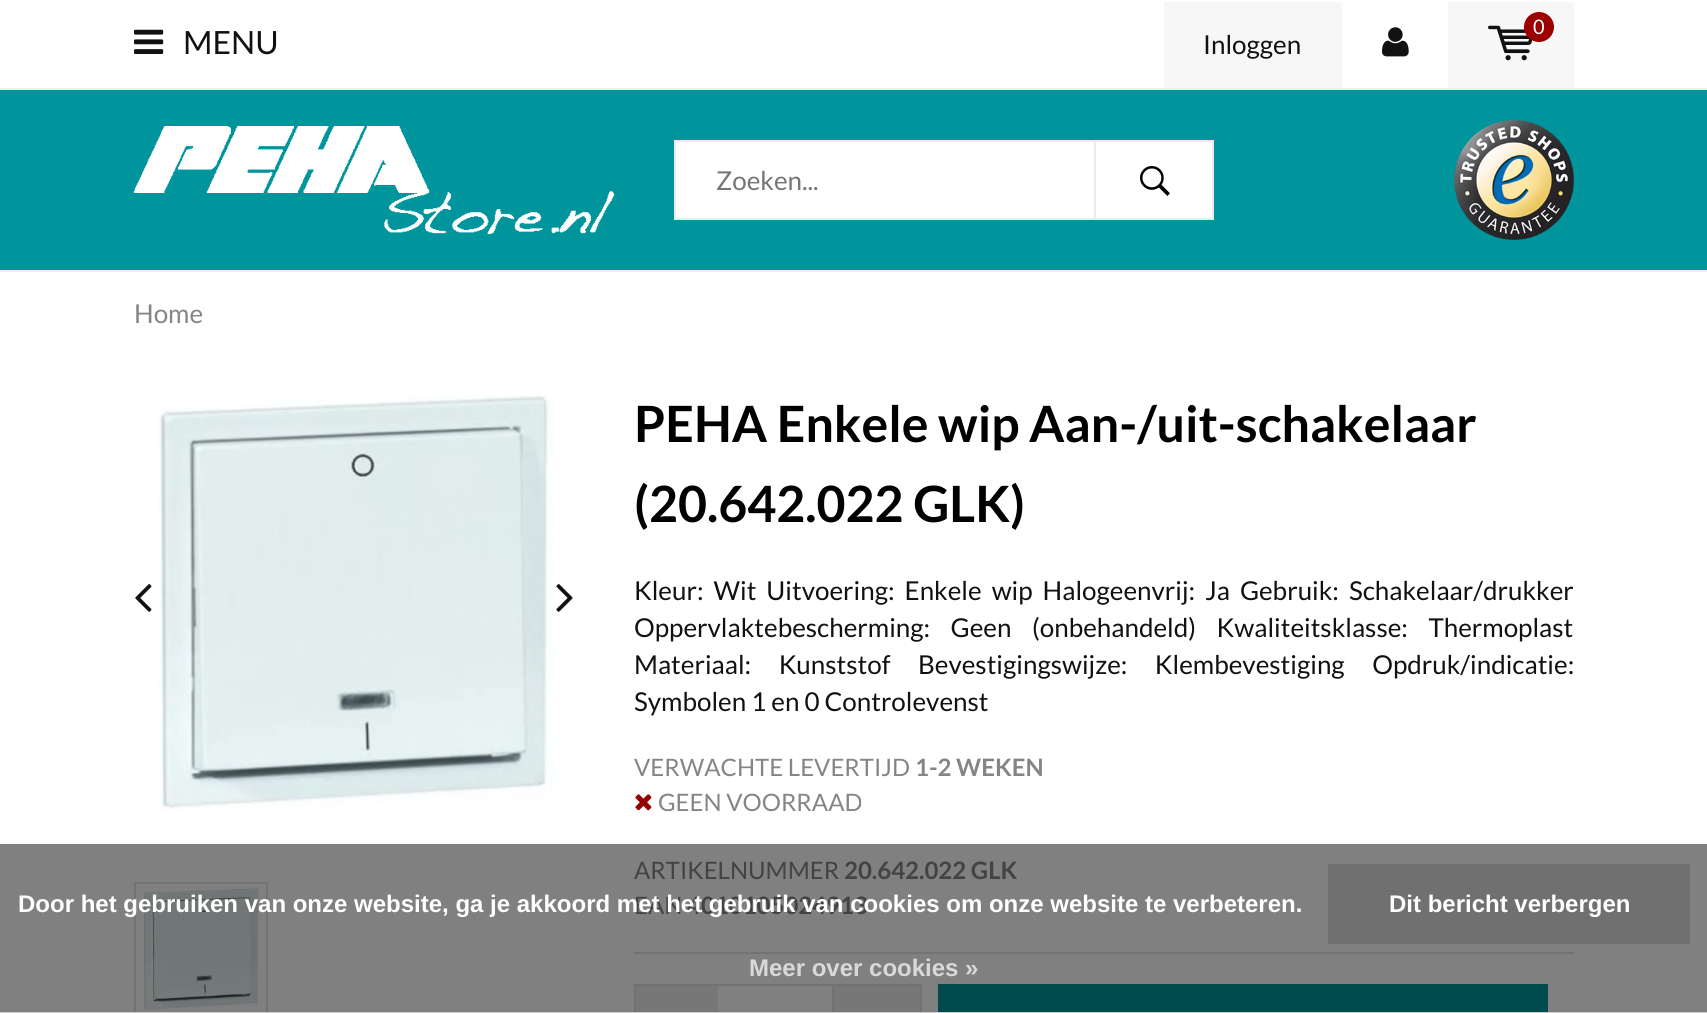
import math
import cairo

surface = cairo.ImageSurface(cairo.FORMAT_RGB24, 1707, 1013)
ctx = cairo.Context(surface)
options = cairo.FontOptions()
options.set_hint_metrics(cairo.HINT_METRICS_OFF)
options.set_hint_style(cairo.HINT_STYLE_NONE)
ctx.set_font_options(options)
ctx.set_miter_limit(4)


def set_color(code):
    ctx.set_source_rgb(*(v / 255 for v in bytes.fromhex(code[-6:])))


def draw_text(x, y, s, family, size, color, bold=False, italic=False):
    ctx.select_font_face(family, cairo.FONT_SLANT_ITALIC if italic else cairo.FONT_SLANT_NORMAL, cairo.FONT_WEIGHT_BOLD if bold else cairo.FONT_WEIGHT_NORMAL)
    ctx.set_font_size(size)
    set_color(color)
    ctx.move_to(x, y)
    ctx.show_text(s)


def draw_spaced(x, y, s, letter, word):
    ctx.move_to(x, y)
    for ch in s:
        ctx.show_text(ch)
        ctx.rel_move_to(letter + word * (ch == ' '), 0)


def fill_rect(x, y, w, h, color):
    set_color(color)
    ctx.rectangle(x, y, w, h)
    ctx.fill()


def draw_image(path, x, y, w, h):
    ctx.save()
    ctx.set_source_surface(cairo.ImageSurface.create_from_png(path), x, y)
    ctx.rectangle(x, y, w, h)
    ctx.fill()
    ctx.restore()


set_color("#ffffff")
ctx.paint()
fill_rect(0, 844, 1707, 168, "#808080")
draw_image("assets/img1.png", 134, 29, 30, 25)
draw_text(183, 54, "MENU", "Lato", 32, "#111111")
fill_rect(1164, 2, 178, 86, "#f7f7f7")
draw_text(1203, 54, "Inloggen", "Lato", 26, "#111111")
draw_image("assets/img2.png", 1382, 27, 27, 30)
fill_rect(1448, 2, 126, 86, "#f7f7f7")
draw_image("assets/img3.png", 1488, 25, 45, 36)
set_color("#9c0000")
ctx.arc(1539, 27, 15, 0, 2 * math.pi)
ctx.fill()
draw_text(1533, 34, "0", "Lato", 20, "#ffffff")
fill_rect(0, 90, 1707, 180, "#00959c")
fill_rect(0, 88, 1707, 2, "#efefef")
fill_rect(0, 270, 1707, 2, "#efefef")
draw_image("assets/img4.png", 134, 126, 480, 108)
set_color("#ffffff")
ctx.rectangle(675, 141, 538, 78)
ctx.fill_preserve()
set_color("#ebebeb")
ctx.stroke()
draw_text(716, 190, "Zoeken...", "Lato", 26, "#757575")
fill_rect(1094, 140, 2, 80, "#ebebeb")
draw_image("assets/img5.png", 1140, 166, 30, 30)
draw_image("assets/img6.png", 1454, 120, 120, 120)
draw_text(134, 323, "Home", "Lato", 26, "#858585")
draw_image("assets/img7.png", 158, 394, 398, 416)
draw_image("assets/img8.png", 135, 584, 17, 28)
draw_image("assets/img9.png", 556, 584, 17, 28)
ctx.rectangle(135, 883, 132, 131)
set_color("#737373")
ctx.stroke()
draw_image("assets/img10.png", 143, 887, 118, 125)
draw_text(634, 442, "PEHA Enkele wip Aan-/uit-schakelaar", "Lato", 50, "#000000", bold=True)
draw_text(634, 522, "(20.642.022 GLK)", "Lato", 50, "#000000", bold=True)
ctx.select_font_face("Lato")
ctx.set_font_size(26)
set_color("#111111")
draw_spaced(634, 600, "Kleur: Wit Uitvoering: Enkele wip Halogeenvrij: Ja Gebruik: Schakelaar/drukker", 0, 5)
draw_spaced(634, 637, "Oppervlaktebescherming: Geen (onbehandeld) Kwaliteitsklasse: Thermoplast", 0, 15.5)
draw_spaced(634, 674, "Materiaal: Kunststof Bevestigingswijze: Klembevestiging Opdruk/indicatie:", 0, 22.5)
draw_text(634, 711, "Symbolen 1 en 0 Controlevenst", "Lato", 26, "#111111")
fill_rect(634, 952, 940, 2, "#737373")
draw_text(634, 776, "VERWACHTE LEVERTIJD", "Lato", 24, "#858585")
draw_text(915, 776, "1-2 WEKEN", "Lato", 24, "#858585", bold=True)
draw_image("assets/img11.png", 635, 794, 17, 17)
draw_text(658, 811, "GEEN VOORRAAD", "Lato", 24, "#858585")
draw_text(634, 879, "ARTIKELNUMMER", "Lato", 24, "#434343")
draw_text(844, 879, "20.642.022 GLK", "Lato", 24, "#434343", bold=True)
draw_text(634, 914, "EAN", "Lato", 24, "#434343")
draw_text(687, 914, "4010105024913", "Lato", 24, "#434343", bold=True)
fill_rect(636, 986, 82, 26, "#777777")
ctx.rectangle(635, 985, 88, 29)
set_color("#717171")
ctx.stroke()
fill_rect(722, 986, 2, 26, "#808080")
fill_rect(718, 984, 120, 2, "#717171")
fill_rect(834, 986, 86, 26, "#777777")
ctx.rectangle(833, 985, 88, 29)
set_color("#717171")
ctx.stroke()
fill_rect(938, 984, 610, 28, "#004b4e")
fill_rect(0, 1012, 1707, 1, "#cccccc")
draw_text(18, 912, "Door het gebruiken van onze website, ga je akkoord met het gebruik van cookies om onze website te verbeteren.", "Liberation Sans", 24, "#ffffff", bold=True)
fill_rect(1328, 864, 362, 80, "#707070")
draw_text(1389, 912, "Dit bericht verbergen", "Liberation Sans", 24, "#ffffff", bold=True)
draw_text(749, 976, "Meer over cookies »", "Liberation Sans", 24, "#d9d9d9", bold=True)
surface.write_to_png("output.png")
